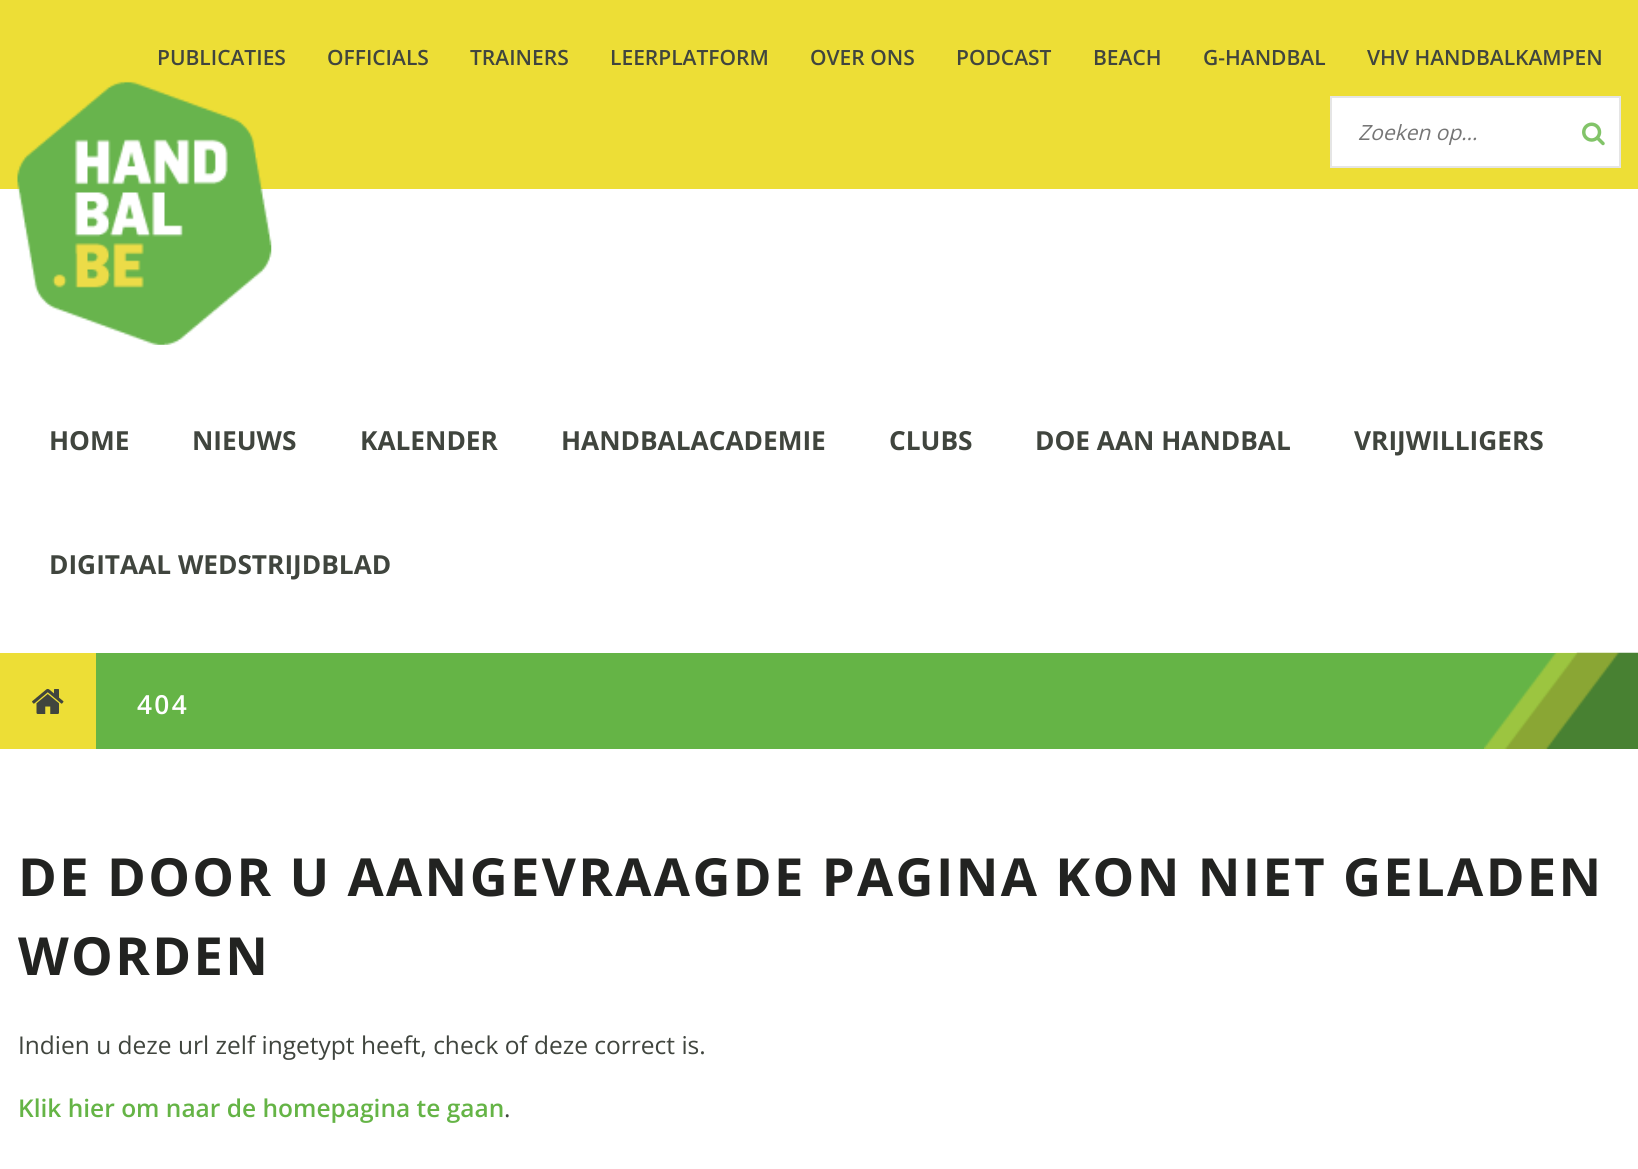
import math
import cairo

surface = cairo.ImageSurface(cairo.FORMAT_RGB24, 1638, 1169)
ctx = cairo.Context(surface)
options = cairo.FontOptions()
options.set_hint_metrics(cairo.HINT_METRICS_OFF)
options.set_hint_style(cairo.HINT_STYLE_NONE)
ctx.set_font_options(options)
ctx.set_miter_limit(4)


def set_color(code):
    ctx.set_source_rgb(*(v / 255 for v in bytes.fromhex(code[-6:])))


def draw_text(x, y, s, family, size, color, bold=False, italic=False):
    ctx.select_font_face(family, cairo.FONT_SLANT_ITALIC if italic else cairo.FONT_SLANT_NORMAL, cairo.FONT_WEIGHT_BOLD if bold else cairo.FONT_WEIGHT_NORMAL)
    ctx.set_font_size(size)
    set_color(color)
    ctx.move_to(x, y)
    ctx.show_text(s)


def draw_spaced(x, y, s, letter, word):
    ctx.move_to(x, y)
    for ch in s:
        ctx.show_text(ch)
        ctx.rel_move_to(letter + word * (ch == ' '), 0)


def fill_rect(x, y, w, h, color):
    set_color(color)
    ctx.rectangle(x, y, w, h)
    ctx.fill()


def draw_image(path, x, y, w, h):
    ctx.save()
    ctx.set_source_surface(cairo.ImageSurface.create_from_png(path), x, y)
    ctx.rectangle(x, y, w, h)
    ctx.fill()
    ctx.restore()


set_color("#ffffff")
ctx.paint()
fill_rect(0, 0, 1638, 189, "#edde36")
draw_text(157, 65, "PUBLICATIES", "Open Sans SemiBold", 21, "#40453e")
draw_text(327, 65, "OFFICIALS", "Open Sans SemiBold", 21, "#40453e")
draw_text(470, 65, "TRAINERS", "Open Sans SemiBold", 21, "#40453e")
draw_text(610, 65, "LEERPLATFORM", "Open Sans SemiBold", 21, "#40453e")
draw_text(810, 65, "OVER ONS", "Open Sans SemiBold", 21, "#40453e")
draw_text(956, 65, "PODCAST", "Open Sans SemiBold", 21, "#40453e")
draw_text(1093, 65, "BEACH", "Open Sans SemiBold", 21, "#40453e")
draw_text(1203, 65, "G-HANDBAL", "Open Sans SemiBold", 21, "#40453e")
draw_text(1367, 65, "VHV HANDBALKAMPEN", "Open Sans SemiBold", 21, "#40453e")
set_color("#ffffff")
ctx.rectangle(1331, 97, 289, 70)
ctx.fill_preserve()
set_color("#e5e5e5")
ctx.stroke()
draw_text(1358, 140, "Zoeken op…", "Open Sans", 21, "#757575", italic=True)
draw_image("assets/img1.png", 1582, 122, 23, 24)
draw_image("assets/img2.png", 17, 81, 255, 264)
draw_text(49, 450, "HOME", "Open Sans", 26.25, "#40453e", bold=True)
draw_text(192, 450, "NIEUWS", "Open Sans", 26.25, "#40453e", bold=True)
draw_text(360, 450, "KALENDER", "Open Sans", 26.25, "#40453e", bold=True)
draw_text(561, 450, "HANDBALACADEMIE", "Open Sans", 26.25, "#40453e", bold=True)
draw_text(889, 450, "CLUBS", "Open Sans", 26.25, "#40453e", bold=True)
draw_text(1035, 450, "DOE AAN HANDBAL", "Open Sans", 26.25, "#40453e", bold=True)
draw_text(1354, 450, "VRIJWILLIGERS", "Open Sans", 26.25, "#40453e", bold=True)
draw_text(49, 574, "DIGITAAL WEDSTRIJDBLAD", "Open Sans", 26.25, "#40453e", bold=True)
fill_rect(96, 653, 1483, 96, "#65b446")
draw_image("assets/img3.png", 1484, 652, 154, 97)
fill_rect(0, 653, 96, 96, "#edde36")
draw_image("assets/img4.png", 32, 688, 32, 26)
ctx.select_font_face("Open Sans SemiBold")
set_color("#ffffff")
draw_spaced(137, 714, "404", 2.35, 0)
ctx.select_font_face("Open Sans", cairo.FONT_SLANT_NORMAL, cairo.FONT_WEIGHT_BOLD)
ctx.set_font_size(52.5)
set_color("#222321")
draw_spaced(18, 896, "DE DOOR U AANGEVRAAGDE PAGINA KON NIET GELADEN", 2.35, 0)
draw_spaced(18, 975, "WORDEN", 2.35, 0)
draw_text(18, 1054, "Indien u deze url zelf ingetypt heeft, check of deze correct is.", "Open Sans", 24.5, "#40453e")
draw_text(18, 1117, "Klik hier om naar de homepagina te gaan", "Open Sans SemiBold", 24.5, "#65b446")
draw_text(504, 1117, ".", "Open Sans", 24.5, "#40453e")
surface.write_to_png("output.png")
